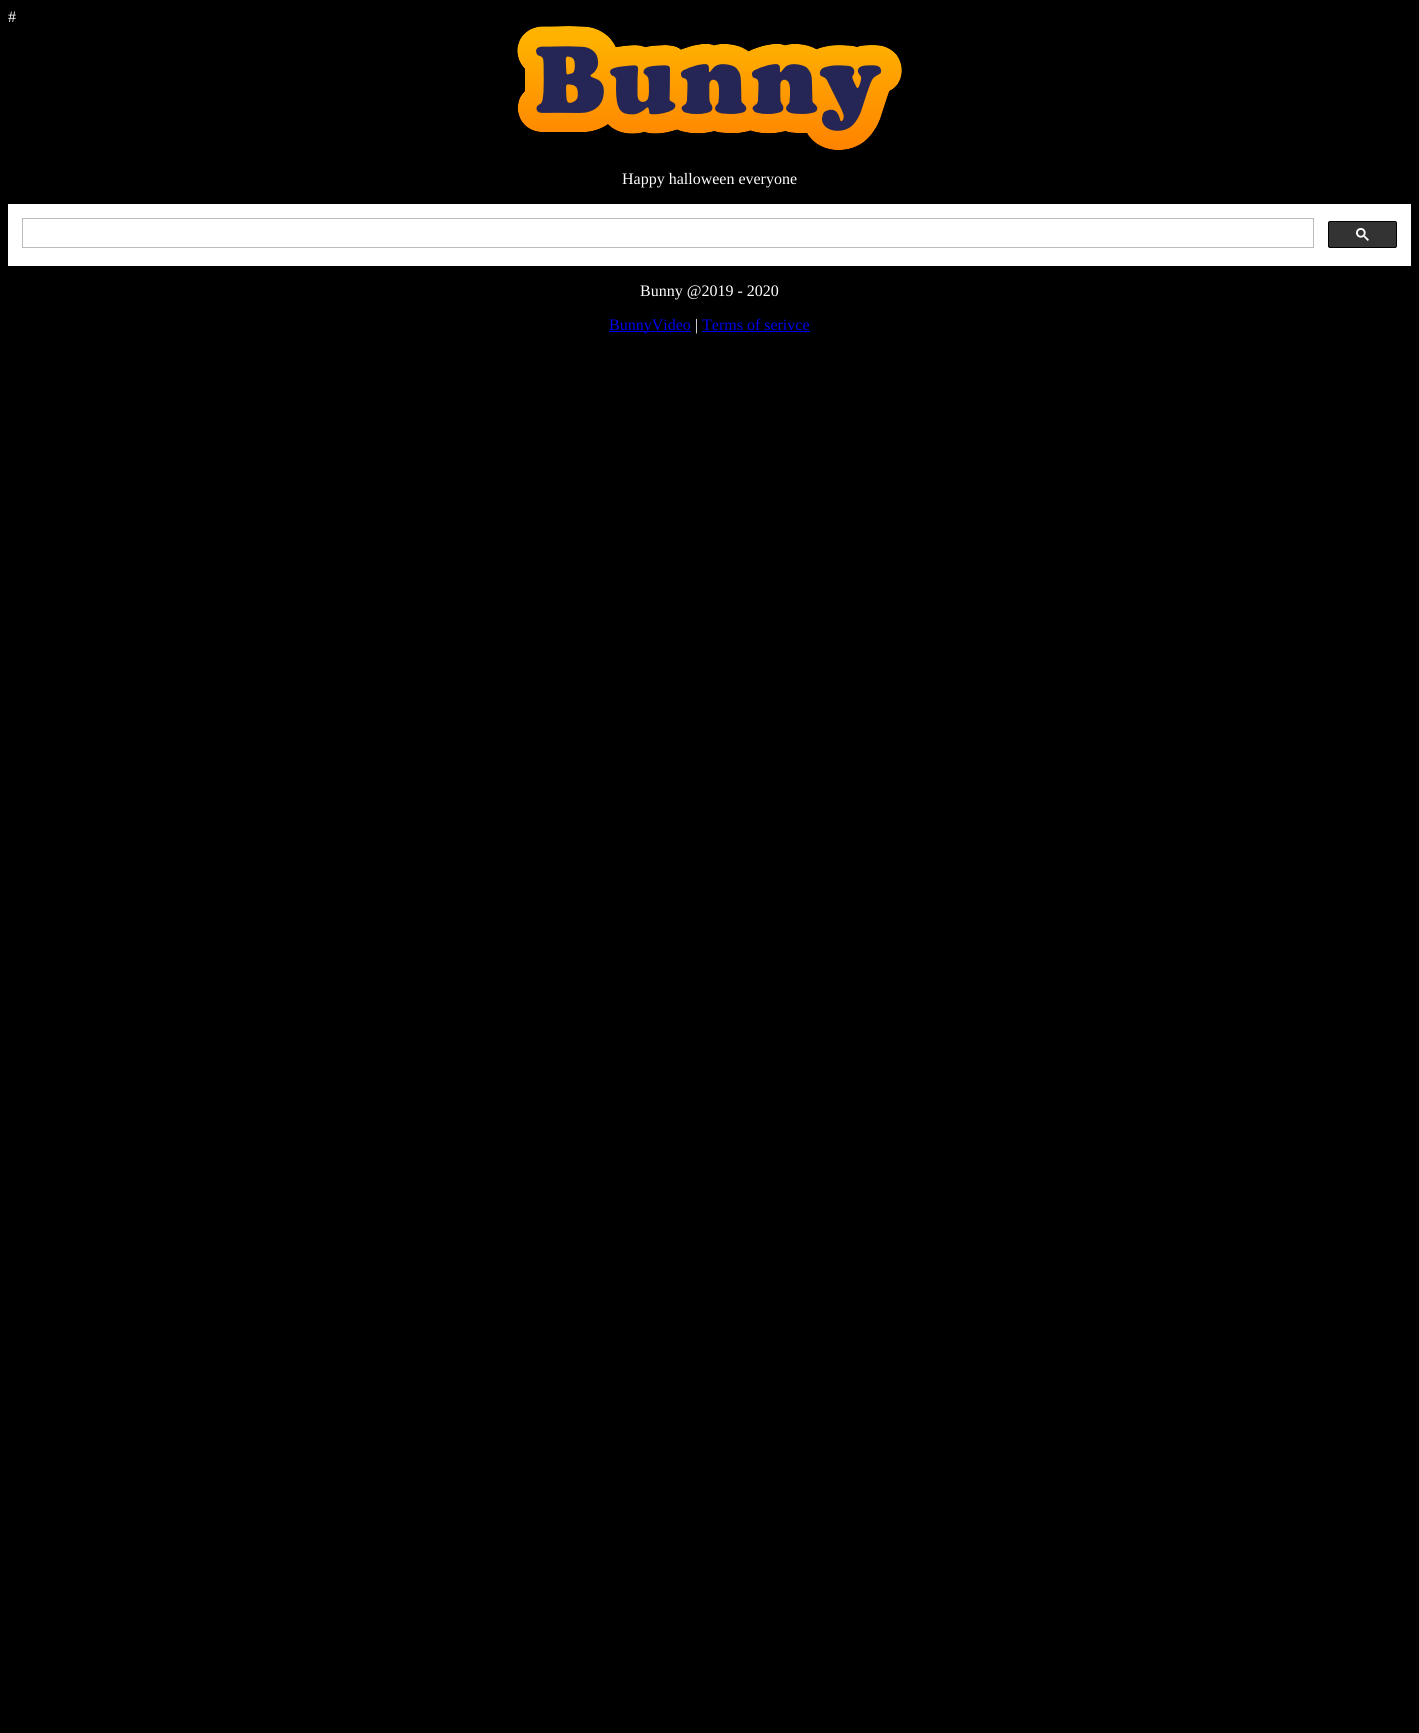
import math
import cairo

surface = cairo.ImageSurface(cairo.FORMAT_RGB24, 1419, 1733)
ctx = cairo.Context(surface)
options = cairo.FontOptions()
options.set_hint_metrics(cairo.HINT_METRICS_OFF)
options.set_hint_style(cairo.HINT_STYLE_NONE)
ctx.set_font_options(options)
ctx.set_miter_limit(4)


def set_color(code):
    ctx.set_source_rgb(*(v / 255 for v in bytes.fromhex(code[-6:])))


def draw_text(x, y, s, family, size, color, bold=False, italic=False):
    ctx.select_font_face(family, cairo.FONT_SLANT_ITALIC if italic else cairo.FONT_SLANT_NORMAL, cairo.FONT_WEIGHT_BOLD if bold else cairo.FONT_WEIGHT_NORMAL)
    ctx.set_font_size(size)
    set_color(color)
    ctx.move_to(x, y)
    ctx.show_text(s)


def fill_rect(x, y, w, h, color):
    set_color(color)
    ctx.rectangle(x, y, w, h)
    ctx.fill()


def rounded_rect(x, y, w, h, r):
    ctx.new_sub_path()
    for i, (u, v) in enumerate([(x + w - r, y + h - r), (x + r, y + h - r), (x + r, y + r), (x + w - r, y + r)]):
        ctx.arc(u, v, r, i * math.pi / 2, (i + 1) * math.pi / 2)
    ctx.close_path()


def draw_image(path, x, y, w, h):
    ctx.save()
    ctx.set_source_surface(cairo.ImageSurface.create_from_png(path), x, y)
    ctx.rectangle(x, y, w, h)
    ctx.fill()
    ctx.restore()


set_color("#000000")
ctx.paint()
draw_text(8, 22, "#", "Liberation Serif", 16, "#ffffff")
draw_image("assets/img1.png", 517, 26, 385, 124)
draw_text(622, 184, "Happy halloween everyone", "Liberation Serif", 16, "#ffffff")
fill_rect(8, 204, 1403, 62, "#ffffff")
ctx.rectangle(22.5, 218.5, 1291, 29)
set_color("#bbbbbb")
ctx.set_line_width(1)
ctx.stroke()
set_color("#333333")
rounded_rect(1328.5, 221.5, 68, 26, 1.5)
ctx.fill_preserve()
set_color("#000000")
ctx.stroke()
draw_image("assets/img2.png", 1356, 228, 13, 13)
draw_text(640, 296, "Bunny @2019 - 2020", "Liberation Serif", 16, "#ffffff")
fill_rect(609, 331, 82, 1, "#0000ee")
draw_text(609, 330, "BunnyVideo", "Liberation Serif", 16, "#0000ee")
draw_text(695, 330, "|", "Liberation Serif", 16, "#ffffff")
draw_text(702, 330, "Terms of serivce", "Liberation Serif", 16, "#0000ee")
fill_rect(702, 331, 108, 1, "#0000ee")
surface.write_to_png("output.png")
